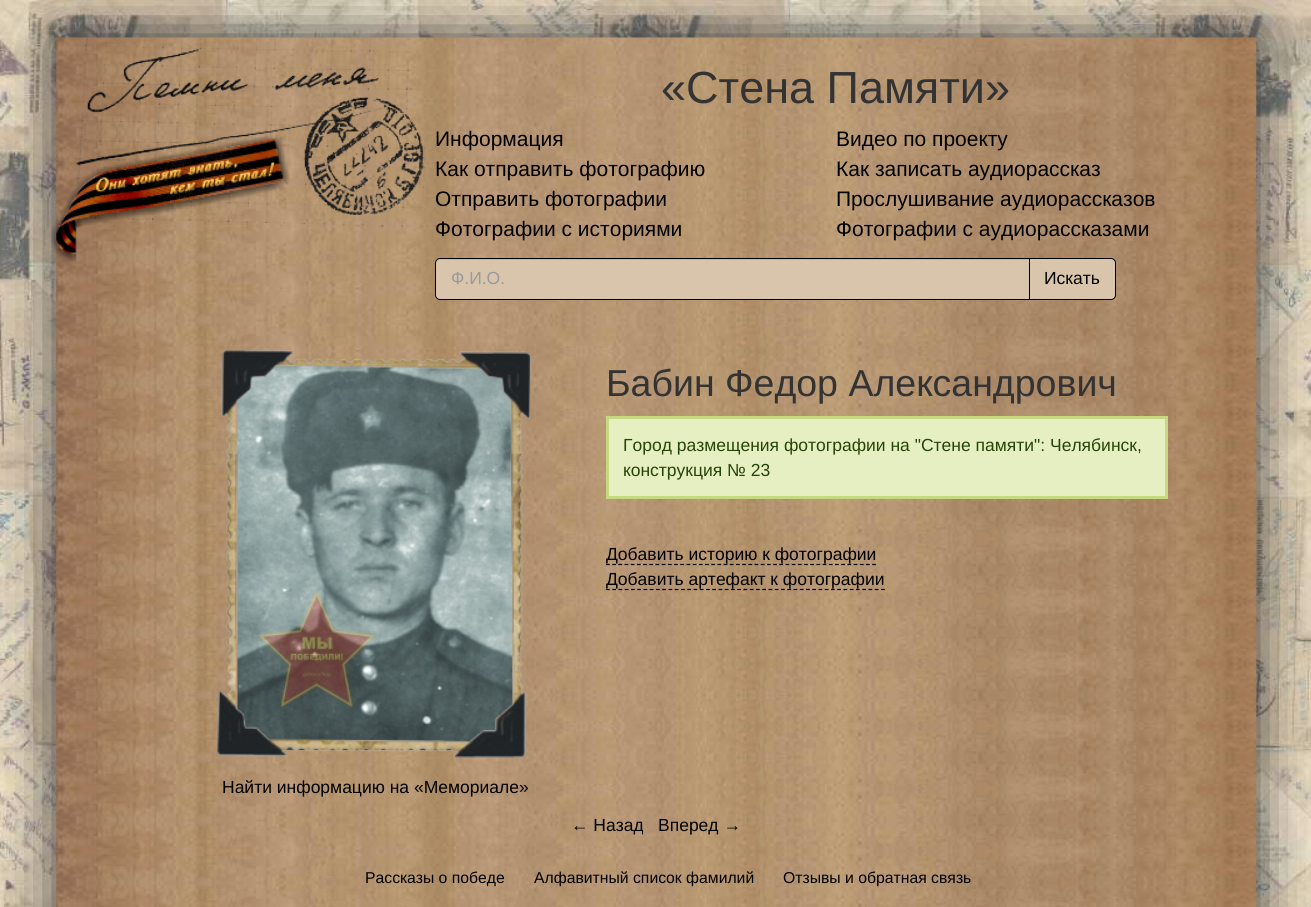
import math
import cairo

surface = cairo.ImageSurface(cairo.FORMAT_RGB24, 1311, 907)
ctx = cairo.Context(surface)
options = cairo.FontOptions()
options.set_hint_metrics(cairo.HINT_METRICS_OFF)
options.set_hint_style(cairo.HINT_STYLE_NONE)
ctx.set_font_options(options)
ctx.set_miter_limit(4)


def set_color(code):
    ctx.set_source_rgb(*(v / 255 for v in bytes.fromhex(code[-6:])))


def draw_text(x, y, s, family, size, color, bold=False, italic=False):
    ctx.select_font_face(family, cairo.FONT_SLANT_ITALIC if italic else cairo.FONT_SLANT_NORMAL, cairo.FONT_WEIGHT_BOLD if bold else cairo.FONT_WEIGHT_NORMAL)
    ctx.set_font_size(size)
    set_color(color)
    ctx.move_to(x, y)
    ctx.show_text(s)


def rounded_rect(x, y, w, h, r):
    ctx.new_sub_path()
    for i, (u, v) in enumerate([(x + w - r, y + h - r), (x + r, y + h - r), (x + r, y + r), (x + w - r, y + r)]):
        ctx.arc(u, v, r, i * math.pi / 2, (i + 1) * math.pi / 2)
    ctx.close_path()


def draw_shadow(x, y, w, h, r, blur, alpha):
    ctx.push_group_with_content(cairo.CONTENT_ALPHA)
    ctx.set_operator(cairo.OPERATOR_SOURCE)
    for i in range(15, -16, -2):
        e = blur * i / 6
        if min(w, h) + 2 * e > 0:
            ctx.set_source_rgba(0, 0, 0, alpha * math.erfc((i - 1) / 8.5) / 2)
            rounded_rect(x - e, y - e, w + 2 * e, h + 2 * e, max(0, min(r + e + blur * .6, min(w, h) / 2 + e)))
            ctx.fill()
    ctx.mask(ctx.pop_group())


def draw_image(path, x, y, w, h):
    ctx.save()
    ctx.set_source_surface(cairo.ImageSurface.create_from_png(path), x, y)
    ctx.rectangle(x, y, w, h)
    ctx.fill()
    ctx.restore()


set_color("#ffffff")
ctx.paint()
draw_image("assets/img1.png", 0, 0, 1311, 907)
set_color("#333333")
draw_shadow(56, 38, 1200, 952, 0, 27.5, 1)
draw_image("assets/img2.png", 56, 37, 1201, 870)
draw_image("assets/img3.png", 75, 37, 350, 192)
draw_image("assets/img4.png", 50, 134, 240, 128)
draw_text(661, 103, "«Стена Памяти»", "Liberation Sans", 45, "#333333")
draw_text(435, 146, "Информация", "Liberation Sans", 21, "#000000")
draw_text(836, 146, "Видео по проекту", "Liberation Sans", 21, "#000000")
draw_text(435, 176, "Как отправить фотографию", "Liberation Sans", 21, "#000000")
draw_text(836, 176, "Как записать аудиорассказ", "Liberation Sans", 21, "#000000")
draw_text(435, 206, "Отправить фотографии", "Liberation Sans", 21, "#000000")
draw_text(836, 206, "Прослушивание аудиорассказов", "Liberation Sans", 21, "#000000")
draw_text(435, 236, "Фотографии с историями", "Liberation Sans", 21, "#000000")
draw_text(836, 236, "Фотографии с аудиорассказами", "Liberation Sans", 21, "#000000")
set_color("#d9c5ac")
ctx.new_path()
ctx.move_to(440, 258)
ctx.line_to(1030, 258)
ctx.line_to(1030, 300)
ctx.line_to(440, 300)
ctx.curve_to(437, 300, 435, 298, 435, 295)
ctx.line_to(435, 263)
ctx.curve_to(435, 260, 437, 258, 440, 258)
ctx.close_path()
ctx.fill()
set_color("#c9b69f")
ctx.new_path()
ctx.move_to(440, 260)
ctx.line_to(1029, 260)
ctx.line_to(1029, 259)
ctx.line_to(440, 259)
ctx.curve_to(437, 259, 436, 261, 436, 264)
ctx.curve_to(436, 262, 438, 260, 440, 260)
ctx.close_path()
ctx.fill()
ctx.new_path()
ctx.move_to(440, 258.5)
ctx.line_to(1029.5, 258.5)
ctx.line_to(1029.5, 299.5)
ctx.line_to(440, 299.5)
ctx.curve_to(437.5, 299.5, 435.5, 297.5, 435.5, 295)
ctx.line_to(435.5, 263)
ctx.curve_to(435.5, 260.5, 437.5, 258.5, 440, 258.5)
ctx.close_path()
set_color("#000000")
ctx.set_line_width(1)
ctx.stroke()
draw_text(451, 284, "Ф.И.О.", "Liberation Sans", 17.5, "#999999")
set_color("#d9c5ac")
ctx.new_path()
ctx.move_to(1029.5, 258.5)
ctx.line_to(1111, 258.5)
ctx.curve_to(1113.5, 258.5, 1115.5, 260.5, 1115.5, 263)
ctx.line_to(1115.5, 295)
ctx.curve_to(1115.5, 297.5, 1113.5, 299.5, 1111, 299.5)
ctx.line_to(1029.5, 299.5)
ctx.close_path()
ctx.fill_preserve()
set_color("#000000")
ctx.stroke()
draw_text(1044, 284, "Искать", "Liberation Sans", 17.5, "#000000")
draw_text(606, 396, "Бабин Федор Александрович", "Liberation Sans", 37.5, "#333333")
set_color("#e6efc2")
ctx.rectangle(607.5, 417.5, 559, 80)
ctx.fill_preserve()
set_color("#c6d880")
ctx.set_line_width(3)
ctx.stroke()
draw_text(623, 451, "Город размещения фотографии на \"Стене памяти\": Челябинск,", "Liberation Sans", 17.5, "#264409")
draw_text(623, 476, "конструкция № 23", "Liberation Sans", 17.5, "#264409")
ctx.new_path()
ctx.move_to(606, 564.5)
ctx.line_to(876, 564.5)
set_color("#000000")
ctx.set_line_width(1.2)
ctx.set_dash([3.75, 2.44])
ctx.stroke()
draw_text(606, 560, "Добавить историю к фотографии", "Liberation Sans", 17.5, "#000000")
ctx.new_path()
ctx.move_to(606, 589.5)
ctx.line_to(885, 589.5)
ctx.set_dash([3.75, 2.5])
ctx.stroke()
draw_text(606, 585, "Добавить артефакт к фотографии", "Liberation Sans", 17.5, "#000000")
draw_image("assets/img6.png", 237, 362, 276, 388)
draw_image("assets/img5.png", 216, 349, 316, 409)
draw_text(222, 793, "Найти информацию на «Мемориале»", "Liberation Sans", 17.5, "#000000")
draw_text(571, 831, "← Назад", "Liberation Sans", 17.5, "#000000")
draw_text(658, 831, "Вперед →", "Liberation Sans", 17.5, "#000000")
draw_text(365, 883, "Рассказы о победе", "Liberation Sans", 15.75, "#000000")
draw_text(534, 883, "Алфавитный список фамилий", "Liberation Sans", 15.75, "#000000")
draw_text(783, 883, "Отзывы и обратная связь", "Liberation Sans", 15.75, "#000000")
surface.write_to_png("output.png")
